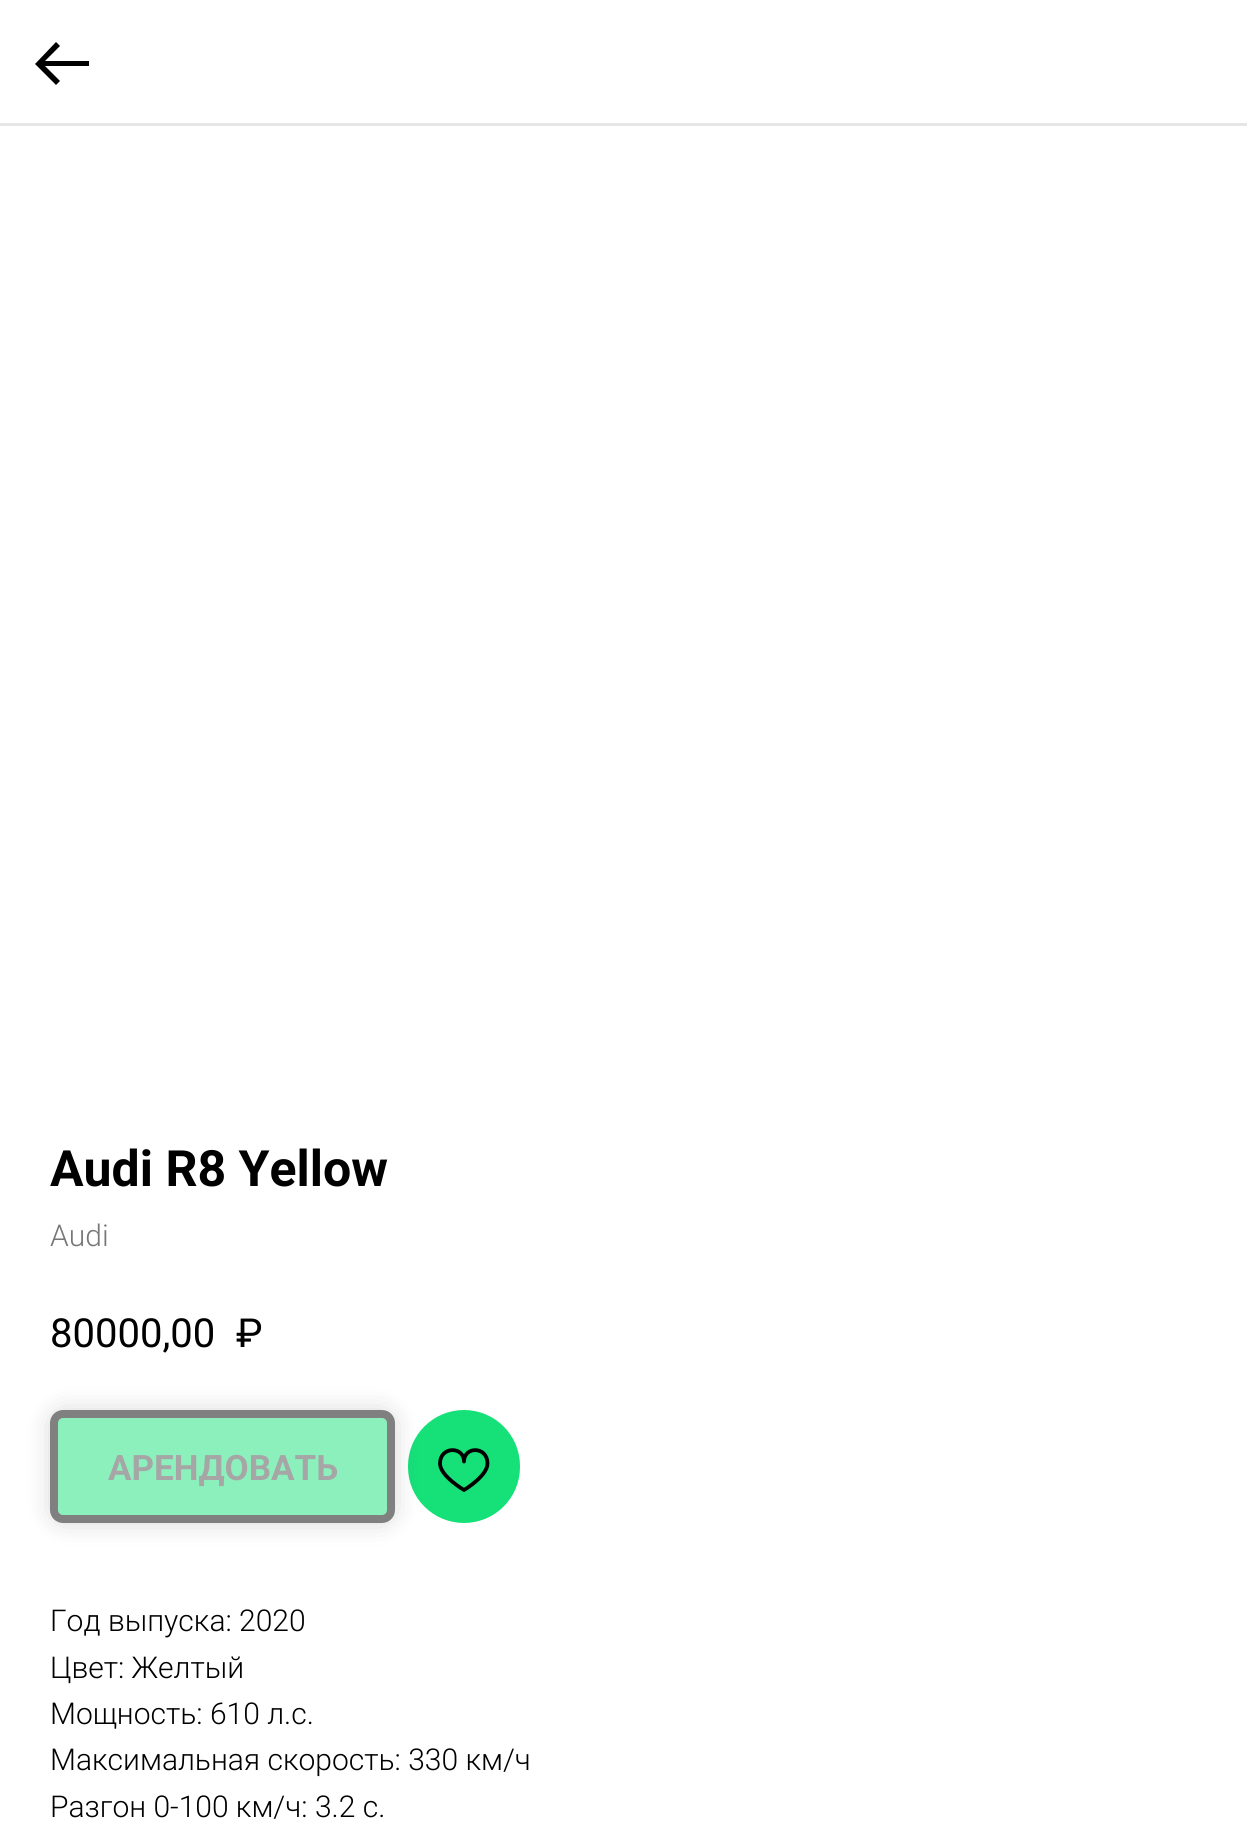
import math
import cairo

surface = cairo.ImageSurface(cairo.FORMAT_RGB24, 1247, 1848)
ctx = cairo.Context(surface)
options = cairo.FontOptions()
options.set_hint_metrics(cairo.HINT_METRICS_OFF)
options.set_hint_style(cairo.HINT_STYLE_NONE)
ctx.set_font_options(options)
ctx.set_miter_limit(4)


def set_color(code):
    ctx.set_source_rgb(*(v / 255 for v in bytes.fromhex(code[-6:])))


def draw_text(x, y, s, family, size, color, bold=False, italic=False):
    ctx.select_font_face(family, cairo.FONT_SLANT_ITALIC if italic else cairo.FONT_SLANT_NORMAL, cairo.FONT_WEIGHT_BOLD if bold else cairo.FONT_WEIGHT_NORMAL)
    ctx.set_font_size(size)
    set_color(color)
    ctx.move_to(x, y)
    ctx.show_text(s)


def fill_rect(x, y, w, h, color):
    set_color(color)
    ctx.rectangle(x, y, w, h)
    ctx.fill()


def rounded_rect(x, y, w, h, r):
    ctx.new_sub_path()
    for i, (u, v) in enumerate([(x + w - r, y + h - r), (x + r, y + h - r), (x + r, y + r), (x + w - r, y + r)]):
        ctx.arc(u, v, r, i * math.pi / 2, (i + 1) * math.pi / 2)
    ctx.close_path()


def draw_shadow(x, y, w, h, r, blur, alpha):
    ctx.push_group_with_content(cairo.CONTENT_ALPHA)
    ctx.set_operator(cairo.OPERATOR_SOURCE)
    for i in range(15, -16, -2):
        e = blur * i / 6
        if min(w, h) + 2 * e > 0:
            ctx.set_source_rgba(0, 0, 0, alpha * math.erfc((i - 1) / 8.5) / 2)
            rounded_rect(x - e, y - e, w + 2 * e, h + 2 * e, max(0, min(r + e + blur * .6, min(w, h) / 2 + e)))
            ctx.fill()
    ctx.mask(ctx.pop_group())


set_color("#ffffff")
ctx.paint()
fill_rect(0, 123, 1247, 3, "#e6e6e6")
set_color("#000000")
ctx.new_path()
ctx.move_to(56, 42)
ctx.line_to(60, 46)
ctx.line_to(45, 61)
ctx.line_to(89, 61)
ctx.line_to(89, 66)
ctx.line_to(45, 66)
ctx.line_to(60, 81)
ctx.line_to(56, 85)
ctx.line_to(35, 64)
ctx.close_path()
ctx.fill()
draw_text(50, 1186, "Audi R8 Yellow", "Roboto", 50, "#000000", bold=True)
draw_text(50, 1246, "Audi", "Roboto Light", 30, "#777777")
draw_text(50, 1347, "80000,00", "Roboto", 40, "#000000")
draw_text(236, 1347, "₽", "Roboto", 40, "#000000")
set_color("#16e078")
rounded_rect(409.5, 1411.5, 109, 110, 54.5)
ctx.fill_preserve()
ctx.set_line_width(3)
ctx.stroke()
set_color("#000000")
draw_shadow(50, 1410, 345, 113, 13, 12.5, 0.15)
set_color("#8bf0bc")
rounded_rect(54, 1414, 337, 105, 9)
ctx.fill_preserve()
set_color("#808080")
ctx.set_line_width(8)
ctx.stroke()
draw_text(108, 1480, "АРЕНДОВАТЬ", "Roboto", 35, "#a6a6a6", bold=True)
ctx.new_path()
ctx.move_to(487.5, 1463.5)
ctx.curve_to(487.5, 1476, 464, 1490, 464, 1490)
ctx.curve_to(464, 1490, 440, 1476, 440, 1463.5)
ctx.curve_to(440, 1446, 464, 1446, 464, 1461.5)
ctx.curve_to(464, 1446, 487.5, 1446, 487.5, 1463.5)
ctx.close_path()
set_color("#000000")
ctx.set_line_width(3.8)
ctx.set_line_join(cairo.LINE_JOIN_ROUND)
ctx.stroke()
draw_text(50, 1631, "Год выпуска: 2020", "Roboto Light", 30, "#000000")
draw_text(50, 1678, "Цвет: Желтый", "Roboto Light", 30, "#000000")
draw_text(50, 1724, "Мощность: 610 л.с.", "Roboto Light", 30, "#000000")
draw_text(50, 1770, "Максимальная скорость: 330 км/ч", "Roboto Light", 30, "#000000")
draw_text(50, 1817, "Разгон 0-100 км/ч: 3.2 с.", "Roboto Light", 30, "#000000")
surface.write_to_png("output.png")
